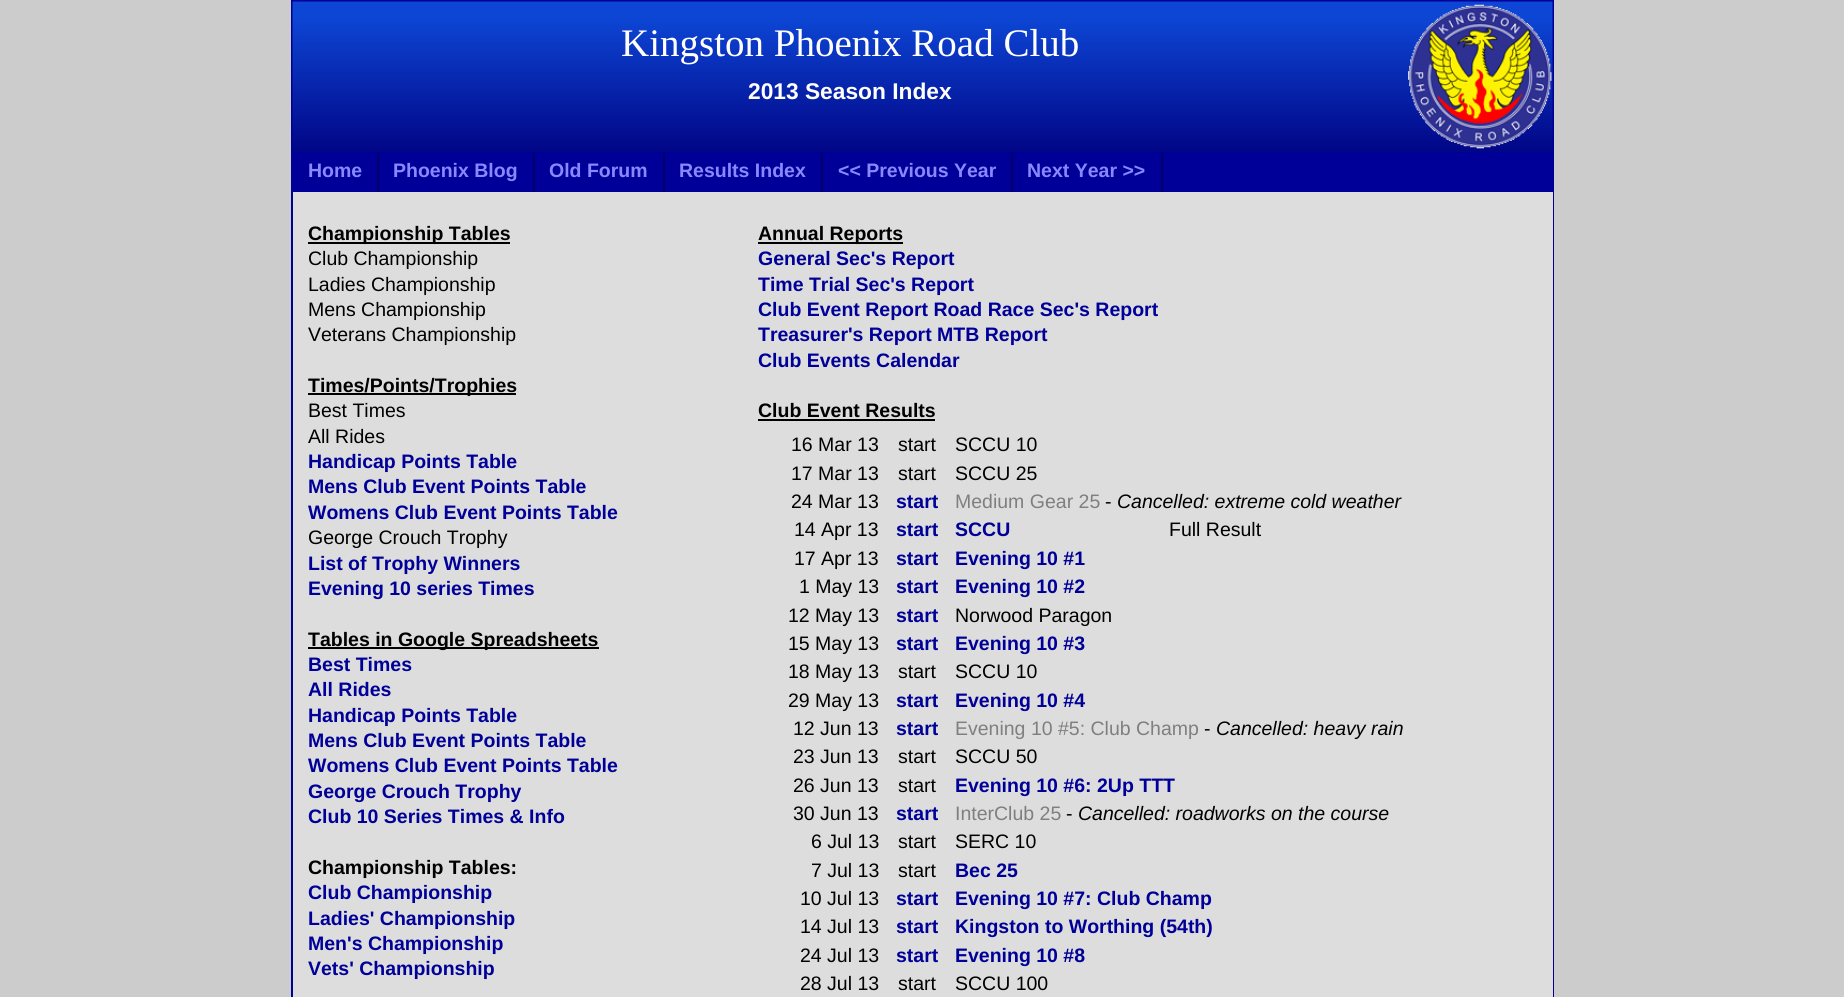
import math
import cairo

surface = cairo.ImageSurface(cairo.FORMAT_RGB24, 1844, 997)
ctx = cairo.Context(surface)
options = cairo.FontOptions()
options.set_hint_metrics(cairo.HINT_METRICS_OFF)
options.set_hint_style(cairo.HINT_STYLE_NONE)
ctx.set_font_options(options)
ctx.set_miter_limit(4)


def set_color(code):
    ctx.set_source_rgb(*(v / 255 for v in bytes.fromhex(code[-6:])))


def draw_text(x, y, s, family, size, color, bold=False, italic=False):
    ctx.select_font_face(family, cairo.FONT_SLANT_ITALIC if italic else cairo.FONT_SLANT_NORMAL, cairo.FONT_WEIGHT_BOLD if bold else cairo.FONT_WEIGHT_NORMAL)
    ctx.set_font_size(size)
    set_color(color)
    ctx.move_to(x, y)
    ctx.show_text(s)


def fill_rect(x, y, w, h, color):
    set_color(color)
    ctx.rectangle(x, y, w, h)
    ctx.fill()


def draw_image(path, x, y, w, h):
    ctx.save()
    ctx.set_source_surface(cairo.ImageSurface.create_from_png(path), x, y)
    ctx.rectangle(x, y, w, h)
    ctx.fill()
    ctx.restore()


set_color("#cccccc")
ctx.paint()
fill_rect(293, 192, 450, 805, "#dddddd")
ctx.rectangle(292, 1, 1261, 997)
set_color("#000099")
ctx.stroke()
draw_image("assets/img1.png", 292, 1, 1261, 158)
draw_text(621, 56, "Kingston Phoenix Road Club", "Liberation Serif", 39, "#ffffff")
draw_text(748, 99, "2013 Season Index", "Liberation Sans", 22.75, "#ffffff", bold=True)
fill_rect(293, 152, 1260, 40, "#000099")
fill_rect(377, 152, 2, 40, "#000066")
draw_text(308, 177, "Home", "Liberation Sans", 19.5, "#8888ff", bold=True)
fill_rect(533, 152, 2, 40, "#000066")
draw_text(393, 177, "Phoenix Blog", "Liberation Sans", 19.5, "#8888ff", bold=True)
fill_rect(663, 152, 2, 40, "#000066")
draw_text(549, 177, "Old Forum", "Liberation Sans", 19.5, "#8888ff", bold=True)
fill_rect(821, 152, 2, 40, "#000066")
draw_text(679, 177, "Results Index", "Liberation Sans", 19.5, "#8888ff", bold=True)
fill_rect(1011, 152, 2, 40, "#000066")
draw_text(838, 177, "<< Previous Year", "Liberation Sans", 19.5, "#8888ff", bold=True)
fill_rect(1161, 152, 2, 40, "#000066")
draw_text(1027, 177, "Next Year >>", "Liberation Sans", 19.5, "#8888ff", bold=True)
draw_image("assets/img2.png", 1408, 4, 144, 145)
fill_rect(308, 242, 202, 2, "#000000")
draw_text(308, 240, "Championship Tables", "Liberation Sans", 19.5, "#000000", bold=True)
draw_text(308, 265, "Club Championship", "Liberation Sans", 19.5, "#000000")
draw_text(308, 291, "Ladies Championship", "Liberation Sans", 19.5, "#000000")
draw_text(308, 316, "Mens Championship", "Liberation Sans", 19.5, "#000000")
draw_text(308, 341, "Veterans Championship", "Liberation Sans", 19.5, "#000000")
fill_rect(308, 393, 208, 2, "#000000")
draw_text(308, 392, "Times/Points/Trophies", "Liberation Sans", 19.5, "#000000", bold=True)
draw_text(308, 417, "Best Times", "Liberation Sans", 19.5, "#000000")
draw_text(308, 443, "All Rides", "Liberation Sans", 19.5, "#000000")
draw_text(308, 468, "Handicap Points Table", "Liberation Sans", 19.5, "#000099", bold=True)
draw_text(308, 493, "Mens Club Event Points Table", "Liberation Sans", 19.5, "#000099", bold=True)
draw_text(308, 519, "Womens Club Event Points Table", "Liberation Sans", 19.5, "#000099", bold=True)
draw_text(308, 544, "George Crouch Trophy", "Liberation Sans", 19.5, "#000000")
draw_text(308, 570, "List of Trophy Winners", "Liberation Sans", 19.5, "#000099", bold=True)
draw_text(308, 595, "Evening 10 series Times", "Liberation Sans", 19.5, "#000099", bold=True)
fill_rect(308, 647, 291, 2, "#000000")
draw_text(308, 646, "Tables in Google Spreadsheets", "Liberation Sans", 19.5, "#000000", bold=True)
draw_text(308, 671, "Best Times", "Liberation Sans", 19.5, "#000099", bold=True)
draw_text(308, 696, "All Rides", "Liberation Sans", 19.5, "#000099", bold=True)
draw_text(308, 722, "Handicap Points Table", "Liberation Sans", 19.5, "#000099", bold=True)
draw_text(308, 747, "Mens Club Event Points Table", "Liberation Sans", 19.5, "#000099", bold=True)
draw_text(308, 772, "Womens Club Event Points Table", "Liberation Sans", 19.5, "#000099", bold=True)
draw_text(308, 798, "George Crouch Trophy", "Liberation Sans", 19.5, "#000099", bold=True)
draw_text(308, 823, "Club 10 Series Times & Info", "Liberation Sans", 19.5, "#000099", bold=True)
draw_text(308, 874, "Championship Tables:", "Liberation Sans", 19.5, "#000000", bold=True)
draw_text(308, 899, "Club Championship", "Liberation Sans", 19.5, "#000099", bold=True)
draw_text(308, 925, "Ladies' Championship", "Liberation Sans", 19.5, "#000099", bold=True)
draw_text(308, 950, "Men's Championship", "Liberation Sans", 19.5, "#000099", bold=True)
draw_text(308, 975, "Vets' Championship", "Liberation Sans", 19.5, "#000099", bold=True)
fill_rect(743, 192, 810, 805, "#dddddd")
fill_rect(758, 242, 145, 2, "#000000")
draw_text(758, 240, "Annual Reports", "Liberation Sans", 19.5, "#000000", bold=True)
draw_text(758, 265, "General Sec's Report", "Liberation Sans", 19.5, "#000099", bold=True)
draw_text(758, 291, "Time Trial Sec's Report", "Liberation Sans", 19.5, "#000099", bold=True)
draw_text(758, 316, "Club Event Report Road Race Sec's Report", "Liberation Sans", 19.5, "#000099", bold=True)
draw_text(758, 341, "Treasurer's Report MTB Report", "Liberation Sans", 19.5, "#000099", bold=True)
draw_text(758, 367, "Club Events Calendar", "Liberation Sans", 19.5, "#000099", bold=True)
draw_text(758, 417, "Club Event Results", "Liberation Sans", 19.5, "#000000", bold=True)
fill_rect(758, 419, 177, 2, "#000000")
draw_text(791, 451, "16 Mar 13", "Liberation Sans", 19.5, "#000000")
draw_text(898, 451, "start", "Liberation Sans", 19.5, "#000000")
draw_text(955, 451, "SCCU 10", "Liberation Sans", 19.5, "#000000")
draw_text(791, 480, "17 Mar 13", "Liberation Sans", 19.5, "#000000")
draw_text(898, 480, "start", "Liberation Sans", 19.5, "#000000")
draw_text(955, 480, "SCCU 25", "Liberation Sans", 19.5, "#000000")
draw_text(791, 508, "24 Mar 13", "Liberation Sans", 19.5, "#000000")
draw_text(896, 508, "start", "Liberation Sans", 19.5, "#000099", bold=True)
draw_text(955, 508, "Medium Gear 25", "Liberation Sans", 19.5, "#7f7f7f")
draw_text(1105, 508, "-", "Liberation Sans", 19.5, "#000000")
draw_text(1117, 508, "Cancelled: extreme cold weather", "Liberation Sans", 19.5, "#000000", italic=True)
draw_text(794, 536, "14 Apr 13", "Liberation Sans", 19.5, "#000000")
draw_text(896, 536, "start", "Liberation Sans", 19.5, "#000099", bold=True)
draw_text(955, 536, "SCCU", "Liberation Sans", 19.5, "#000099", bold=True)
draw_text(1169, 536, "Full Result", "Liberation Sans", 19.5, "#000000")
draw_text(794, 565, "17 Apr 13", "Liberation Sans", 19.5, "#000000")
draw_text(896, 565, "start", "Liberation Sans", 19.5, "#000099", bold=True)
draw_text(955, 565, "Evening 10 #1", "Liberation Sans", 19.5, "#000099", bold=True)
draw_text(799, 593, "1 May 13", "Liberation Sans", 19.5, "#000000")
draw_text(896, 593, "start", "Liberation Sans", 19.5, "#000099", bold=True)
draw_text(955, 593, "Evening 10 #2", "Liberation Sans", 19.5, "#000099", bold=True)
draw_text(788, 622, "12 May 13", "Liberation Sans", 19.5, "#000000")
draw_text(896, 622, "start", "Liberation Sans", 19.5, "#000099", bold=True)
draw_text(955, 622, "Norwood Paragon", "Liberation Sans", 19.5, "#000000")
draw_text(788, 650, "15 May 13", "Liberation Sans", 19.5, "#000000")
draw_text(896, 650, "start", "Liberation Sans", 19.5, "#000099", bold=True)
draw_text(955, 650, "Evening 10 #3", "Liberation Sans", 19.5, "#000099", bold=True)
draw_text(788, 678, "18 May 13", "Liberation Sans", 19.5, "#000000")
draw_text(898, 678, "start", "Liberation Sans", 19.5, "#000000")
draw_text(955, 678, "SCCU 10", "Liberation Sans", 19.5, "#000000")
draw_text(788, 707, "29 May 13", "Liberation Sans", 19.5, "#000000")
draw_text(896, 707, "start", "Liberation Sans", 19.5, "#000099", bold=True)
draw_text(955, 707, "Evening 10 #4", "Liberation Sans", 19.5, "#000099", bold=True)
draw_text(793, 735, "12 Jun 13", "Liberation Sans", 19.5, "#000000")
draw_text(896, 735, "start", "Liberation Sans", 19.5, "#000099", bold=True)
draw_text(955, 735, "Evening 10 #5: Club Champ", "Liberation Sans", 19.5, "#7f7f7f")
draw_text(1204, 735, "-", "Liberation Sans", 19.5, "#000000")
draw_text(1216, 735, "Cancelled: heavy rain", "Liberation Sans", 19.5, "#000000", italic=True)
draw_text(793, 763, "23 Jun 13", "Liberation Sans", 19.5, "#000000")
draw_text(898, 763, "start", "Liberation Sans", 19.5, "#000000")
draw_text(955, 763, "SCCU 50", "Liberation Sans", 19.5, "#000000")
draw_text(793, 792, "26 Jun 13", "Liberation Sans", 19.5, "#000000")
draw_text(898, 792, "start", "Liberation Sans", 19.5, "#000000")
draw_text(955, 792, "Evening 10 #6: 2Up TTT", "Liberation Sans", 19.5, "#000099", bold=True)
draw_text(793, 820, "30 Jun 13", "Liberation Sans", 19.5, "#000000")
draw_text(896, 820, "start", "Liberation Sans", 19.5, "#000099", bold=True)
draw_text(955, 820, "InterClub 25", "Liberation Sans", 19.5, "#7f7f7f")
draw_text(1066, 820, "-", "Liberation Sans", 19.5, "#000000")
draw_text(1078, 820, "Cancelled: roadworks on the course", "Liberation Sans", 19.5, "#000000", italic=True)
draw_text(811, 848, "6 Jul 13", "Liberation Sans", 19.5, "#000000")
draw_text(898, 848, "start", "Liberation Sans", 19.5, "#000000")
draw_text(955, 848, "SERC 10", "Liberation Sans", 19.5, "#000000")
draw_text(811, 877, "7 Jul 13", "Liberation Sans", 19.5, "#000000")
draw_text(898, 877, "start", "Liberation Sans", 19.5, "#000000")
draw_text(955, 877, "Bec 25", "Liberation Sans", 19.5, "#000099", bold=True)
draw_text(800, 905, "10 Jul 13", "Liberation Sans", 19.5, "#000000")
draw_text(896, 905, "start", "Liberation Sans", 19.5, "#000099", bold=True)
draw_text(955, 905, "Evening 10 #7: Club Champ", "Liberation Sans", 19.5, "#000099", bold=True)
draw_text(800, 933, "14 Jul 13", "Liberation Sans", 19.5, "#000000")
draw_text(896, 933, "start", "Liberation Sans", 19.5, "#000099", bold=True)
draw_text(955, 933, "Kingston to Worthing (54th)", "Liberation Sans", 19.5, "#000099", bold=True)
draw_text(800, 962, "24 Jul 13", "Liberation Sans", 19.5, "#000000")
draw_text(896, 962, "start", "Liberation Sans", 19.5, "#000099", bold=True)
draw_text(955, 962, "Evening 10 #8", "Liberation Sans", 19.5, "#000099", bold=True)
draw_text(800, 990, "28 Jul 13", "Liberation Sans", 19.5, "#000000")
draw_text(898, 990, "start", "Liberation Sans", 19.5, "#000000")
draw_text(955, 990, "SCCU 100", "Liberation Sans", 19.5, "#000000")
surface.write_to_png("output.png")
